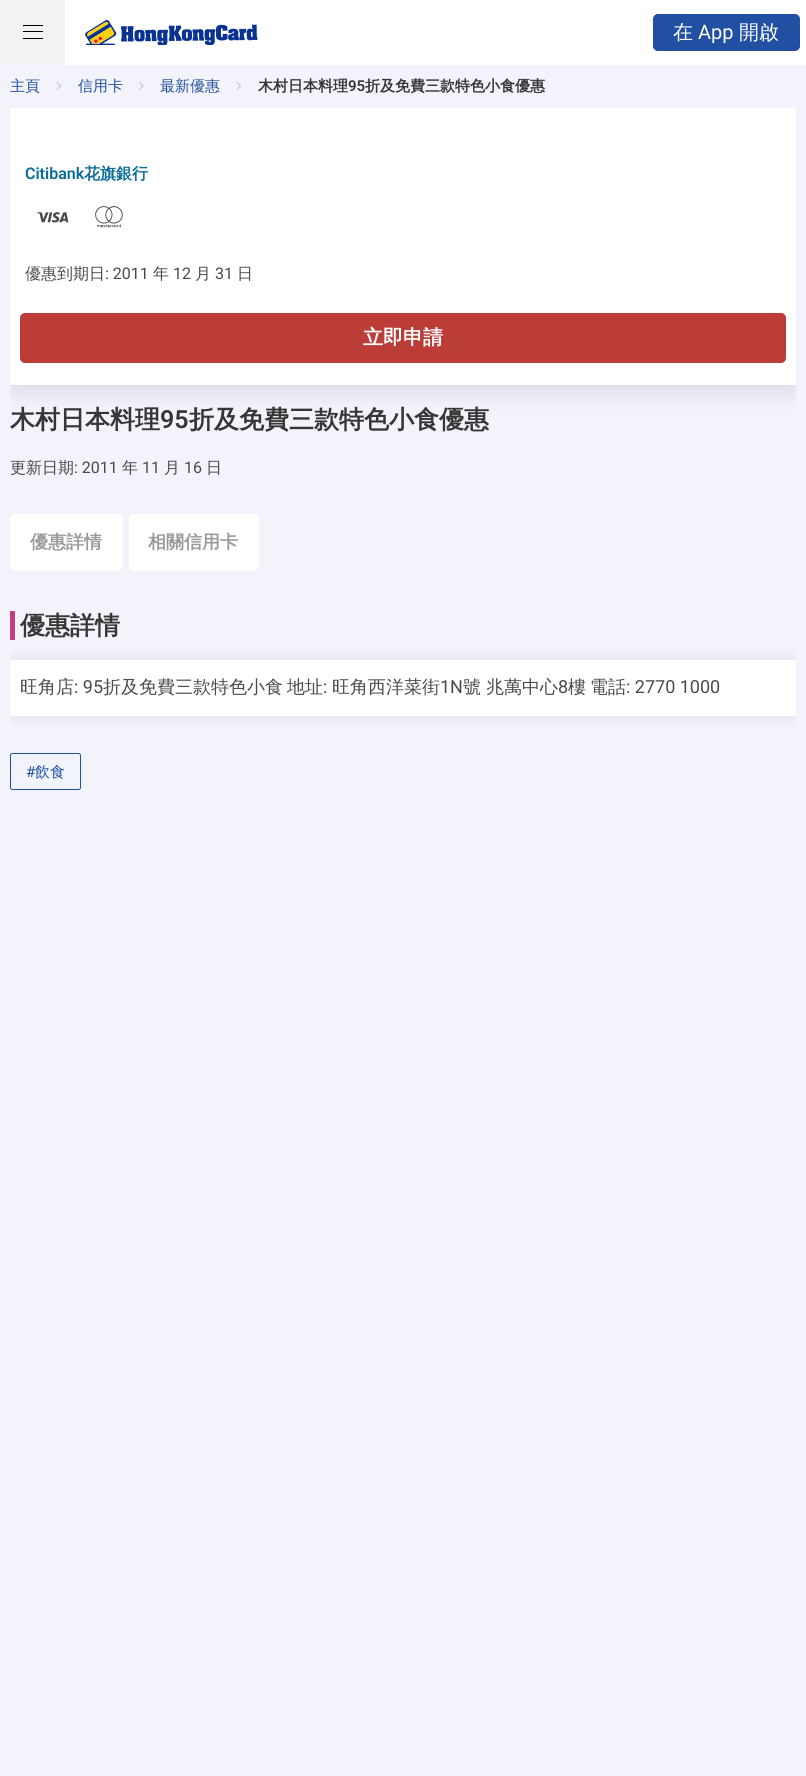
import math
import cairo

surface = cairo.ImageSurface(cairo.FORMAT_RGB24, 806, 1776)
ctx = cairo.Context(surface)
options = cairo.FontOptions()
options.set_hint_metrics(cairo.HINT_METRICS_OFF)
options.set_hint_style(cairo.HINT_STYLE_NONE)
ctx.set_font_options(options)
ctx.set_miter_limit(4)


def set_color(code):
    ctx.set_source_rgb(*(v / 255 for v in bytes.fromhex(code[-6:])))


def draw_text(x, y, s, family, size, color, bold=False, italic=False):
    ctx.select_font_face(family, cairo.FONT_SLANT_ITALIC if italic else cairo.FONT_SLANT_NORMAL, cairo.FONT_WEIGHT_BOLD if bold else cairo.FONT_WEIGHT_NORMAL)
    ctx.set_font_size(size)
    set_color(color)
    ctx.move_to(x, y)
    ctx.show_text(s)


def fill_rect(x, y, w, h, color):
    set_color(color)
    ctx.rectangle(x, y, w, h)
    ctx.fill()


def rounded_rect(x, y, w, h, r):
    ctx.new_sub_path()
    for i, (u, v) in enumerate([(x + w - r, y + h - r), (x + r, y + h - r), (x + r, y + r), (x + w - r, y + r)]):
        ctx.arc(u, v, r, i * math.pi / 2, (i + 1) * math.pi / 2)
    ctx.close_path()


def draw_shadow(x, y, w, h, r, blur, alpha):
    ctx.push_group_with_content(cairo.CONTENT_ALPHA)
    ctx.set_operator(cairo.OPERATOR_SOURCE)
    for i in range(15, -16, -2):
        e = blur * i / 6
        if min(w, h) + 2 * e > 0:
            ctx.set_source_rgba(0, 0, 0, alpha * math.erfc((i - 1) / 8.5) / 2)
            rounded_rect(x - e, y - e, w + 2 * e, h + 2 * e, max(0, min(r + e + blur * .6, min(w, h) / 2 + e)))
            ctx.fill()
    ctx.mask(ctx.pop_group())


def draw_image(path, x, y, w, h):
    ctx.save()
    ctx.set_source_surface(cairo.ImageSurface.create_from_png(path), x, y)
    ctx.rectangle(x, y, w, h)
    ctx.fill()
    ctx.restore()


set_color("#f2f3fb")
ctx.paint()
fill_rect(65, 0, 741, 65, "#ffffff")
fill_rect(0, 0, 65, 65, "#f2f2f2")
fill_rect(23, 25, 20, 1, "#000000")
fill_rect(23, 31, 20, 1, "#000000")
fill_rect(23, 38, 20, 1, "#000000")
draw_image("assets/img1.png", 85, 20, 173, 25)
set_color("#2150a2")
rounded_rect(653.5, 14.5, 146, 36, 4.5)
ctx.fill_preserve()
ctx.set_line_width(1)
ctx.stroke()
draw_text(673, 39, "在", "WenQuanYi Zen Hei Medium", 20, "#ffffff")
draw_text(698, 39, "App", "Roboto", 20, "#ffffff")
draw_text(739, 39, "開啟", "WenQuanYi Zen Hei Medium", 20, "#ffffff")
draw_text(10, 91, "主頁", "WenQuanYi Zen Hei Medium", 15, "#2150a1")
draw_image("assets/img2.png", 56, 82, 5, 8)
draw_text(78, 91, "信用卡", "WenQuanYi Zen Hei Medium", 15, "#2150a1")
draw_image("assets/img3.png", 139, 82, 5, 8)
draw_text(160, 91, "最新優惠", "WenQuanYi Zen Hei Medium", 15, "#2150a1")
draw_image("assets/img2.png", 236, 82, 5, 8)
draw_text(258, 91, "木村日本料理", "WenQuanYi Zen Hei", 15, "#363636", bold=True)
draw_text(348, 91, "95", "Roboto SemiBold", 15, "#363636")
draw_text(365, 91, "折及免費三款特色小食優惠", "WenQuanYi Zen Hei", 15, "#363636", bold=True)
ctx.save()
ctx.rectangle(10, 108, 786, 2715)
ctx.clip()
ctx.rectangle(9.5, 106.5, 788, 279)
set_color("#edeef6")
ctx.stroke()
ctx.restore()
ctx.save()
ctx.rectangle(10, 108, 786, 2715)
ctx.clip()
set_color("#0a0a0a")
draw_shadow(13, 120, 781, 273, 0, 10, 0.1)
ctx.restore()
fill_rect(10, 108, 786, 277, "#ffffff")
draw_text(25, 179, "Citibank", "Roboto SemiBold", 16, "#076b9c")
draw_text(84, 179, "花旗銀行", "WenQuanYi Zen Hei", 16, "#076b9c", bold=True)
draw_image("assets/img4.png", 36, 212, 33, 11)
draw_image("assets/img5.png", 95, 206, 28, 22)
draw_text(25, 279, "優惠到期日", "WenQuanYi Zen Hei Medium", 16, "#4a4a4a")
draw_text(105, 279, ": 2011", "Roboto", 16, "#4a4a4a")
draw_text(153, 279, "年", "WenQuanYi Zen Hei Medium", 16, "#4a4a4a")
draw_text(173, 279, "12", "Roboto", 16, "#4a4a4a")
draw_text(195, 279, "月", "WenQuanYi Zen Hei Medium", 16, "#4a4a4a")
draw_text(215, 279, "31", "Roboto", 16, "#4a4a4a")
draw_text(237, 279, "日", "WenQuanYi Zen Hei Medium", 16, "#4a4a4a")
set_color("#bc3d38")
rounded_rect(20, 313, 766, 50, 5)
ctx.fill()
draw_text(363, 344, "立即申請", "WenQuanYi Zen Hei", 20, "#ffffff", bold=True)
draw_text(10, 428, "木村日本料理", "WenQuanYi Zen Hei", 25, "#363636", bold=True)
draw_text(160, 428, "95", "Roboto SemiBold", 25, "#363636")
draw_text(189, 428, "折及免費三款特色小食優惠", "WenQuanYi Zen Hei", 25, "#363636", bold=True)
draw_text(10, 473, "更新日期", "WenQuanYi Zen Hei Medium", 16, "#4a4a4a")
draw_text(74, 473, ": 2011", "Roboto", 16, "#4a4a4a")
draw_text(122, 473, "年", "WenQuanYi Zen Hei Medium", 16, "#4a4a4a")
draw_text(142, 473, "11", "Roboto", 16, "#4a4a4a")
draw_text(164, 473, "月", "WenQuanYi Zen Hei Medium", 16, "#4a4a4a")
draw_text(184, 473, "16", "Roboto", 16, "#4a4a4a")
draw_text(206, 473, "日", "WenQuanYi Zen Hei Medium", 16, "#4a4a4a")
set_color("#ffffff")
rounded_rect(10, 514, 113, 57, 5)
ctx.fill()
draw_text(30, 548, "優惠詳情", "WenQuanYi Zen Hei", 18, "#999999", bold=True)
set_color("#ffffff")
rounded_rect(129, 514, 130, 57, 5)
ctx.fill()
draw_text(148, 548, "相關信用卡", "WenQuanYi Zen Hei", 18, "#999999", bold=True)
fill_rect(10, 611, 5, 29, "#c63d81")
ctx.save()
ctx.rectangle(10, 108, 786, 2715)
ctx.clip()
set_color("#000000")
draw_shadow(10, 660, 786, 56, 0, 8, 0.08)
ctx.restore()
draw_text(20, 634, "優惠詳情", "WenQuanYi Zen Hei", 25, "#363636", bold=True)
fill_rect(10, 660, 786, 56, "#ffffff")
draw_text(20, 693, "旺角店", "WenQuanYi Zen Hei Medium", 18, "#4a4a4a")
draw_text(74, 693, ": 95", "Roboto", 18, "#4a4a4a")
draw_text(103, 693, "折及免費三款特色小食", "WenQuanYi Zen Hei Medium", 18, "#4a4a4a")
draw_text(287, 693, "地址", "WenQuanYi Zen Hei Medium", 18, "#4a4a4a")
draw_text(323, 693, ":", "Roboto", 18, "#4a4a4a")
draw_text(332, 693, "旺角西洋菜街", "WenQuanYi Zen Hei Medium", 18, "#4a4a4a")
draw_text(440, 693, "1N", "Roboto", 18, "#4a4a4a")
draw_text(463, 693, "號", "WenQuanYi Zen Hei Medium", 18, "#4a4a4a")
draw_text(486, 693, "兆萬中心", "WenQuanYi Zen Hei Medium", 18, "#4a4a4a")
draw_text(558, 693, "8", "Roboto", 18, "#4a4a4a")
draw_text(568, 693, "樓", "WenQuanYi Zen Hei Medium", 18, "#4a4a4a")
draw_text(590, 693, "電話", "WenQuanYi Zen Hei Medium", 18, "#4a4a4a")
draw_text(626, 693, ": 2770 1000", "Roboto", 18, "#4a4a4a")
rounded_rect(10.5, 753.5, 70, 36, 2)
set_color("#2150a1")
ctx.stroke()
draw_text(26, 777, "#", "Roboto", 15, "#2150a1")
draw_text(35, 777, "飲食", "WenQuanYi Zen Hei Medium", 15, "#2150a1")
surface.write_to_png("output.png")
